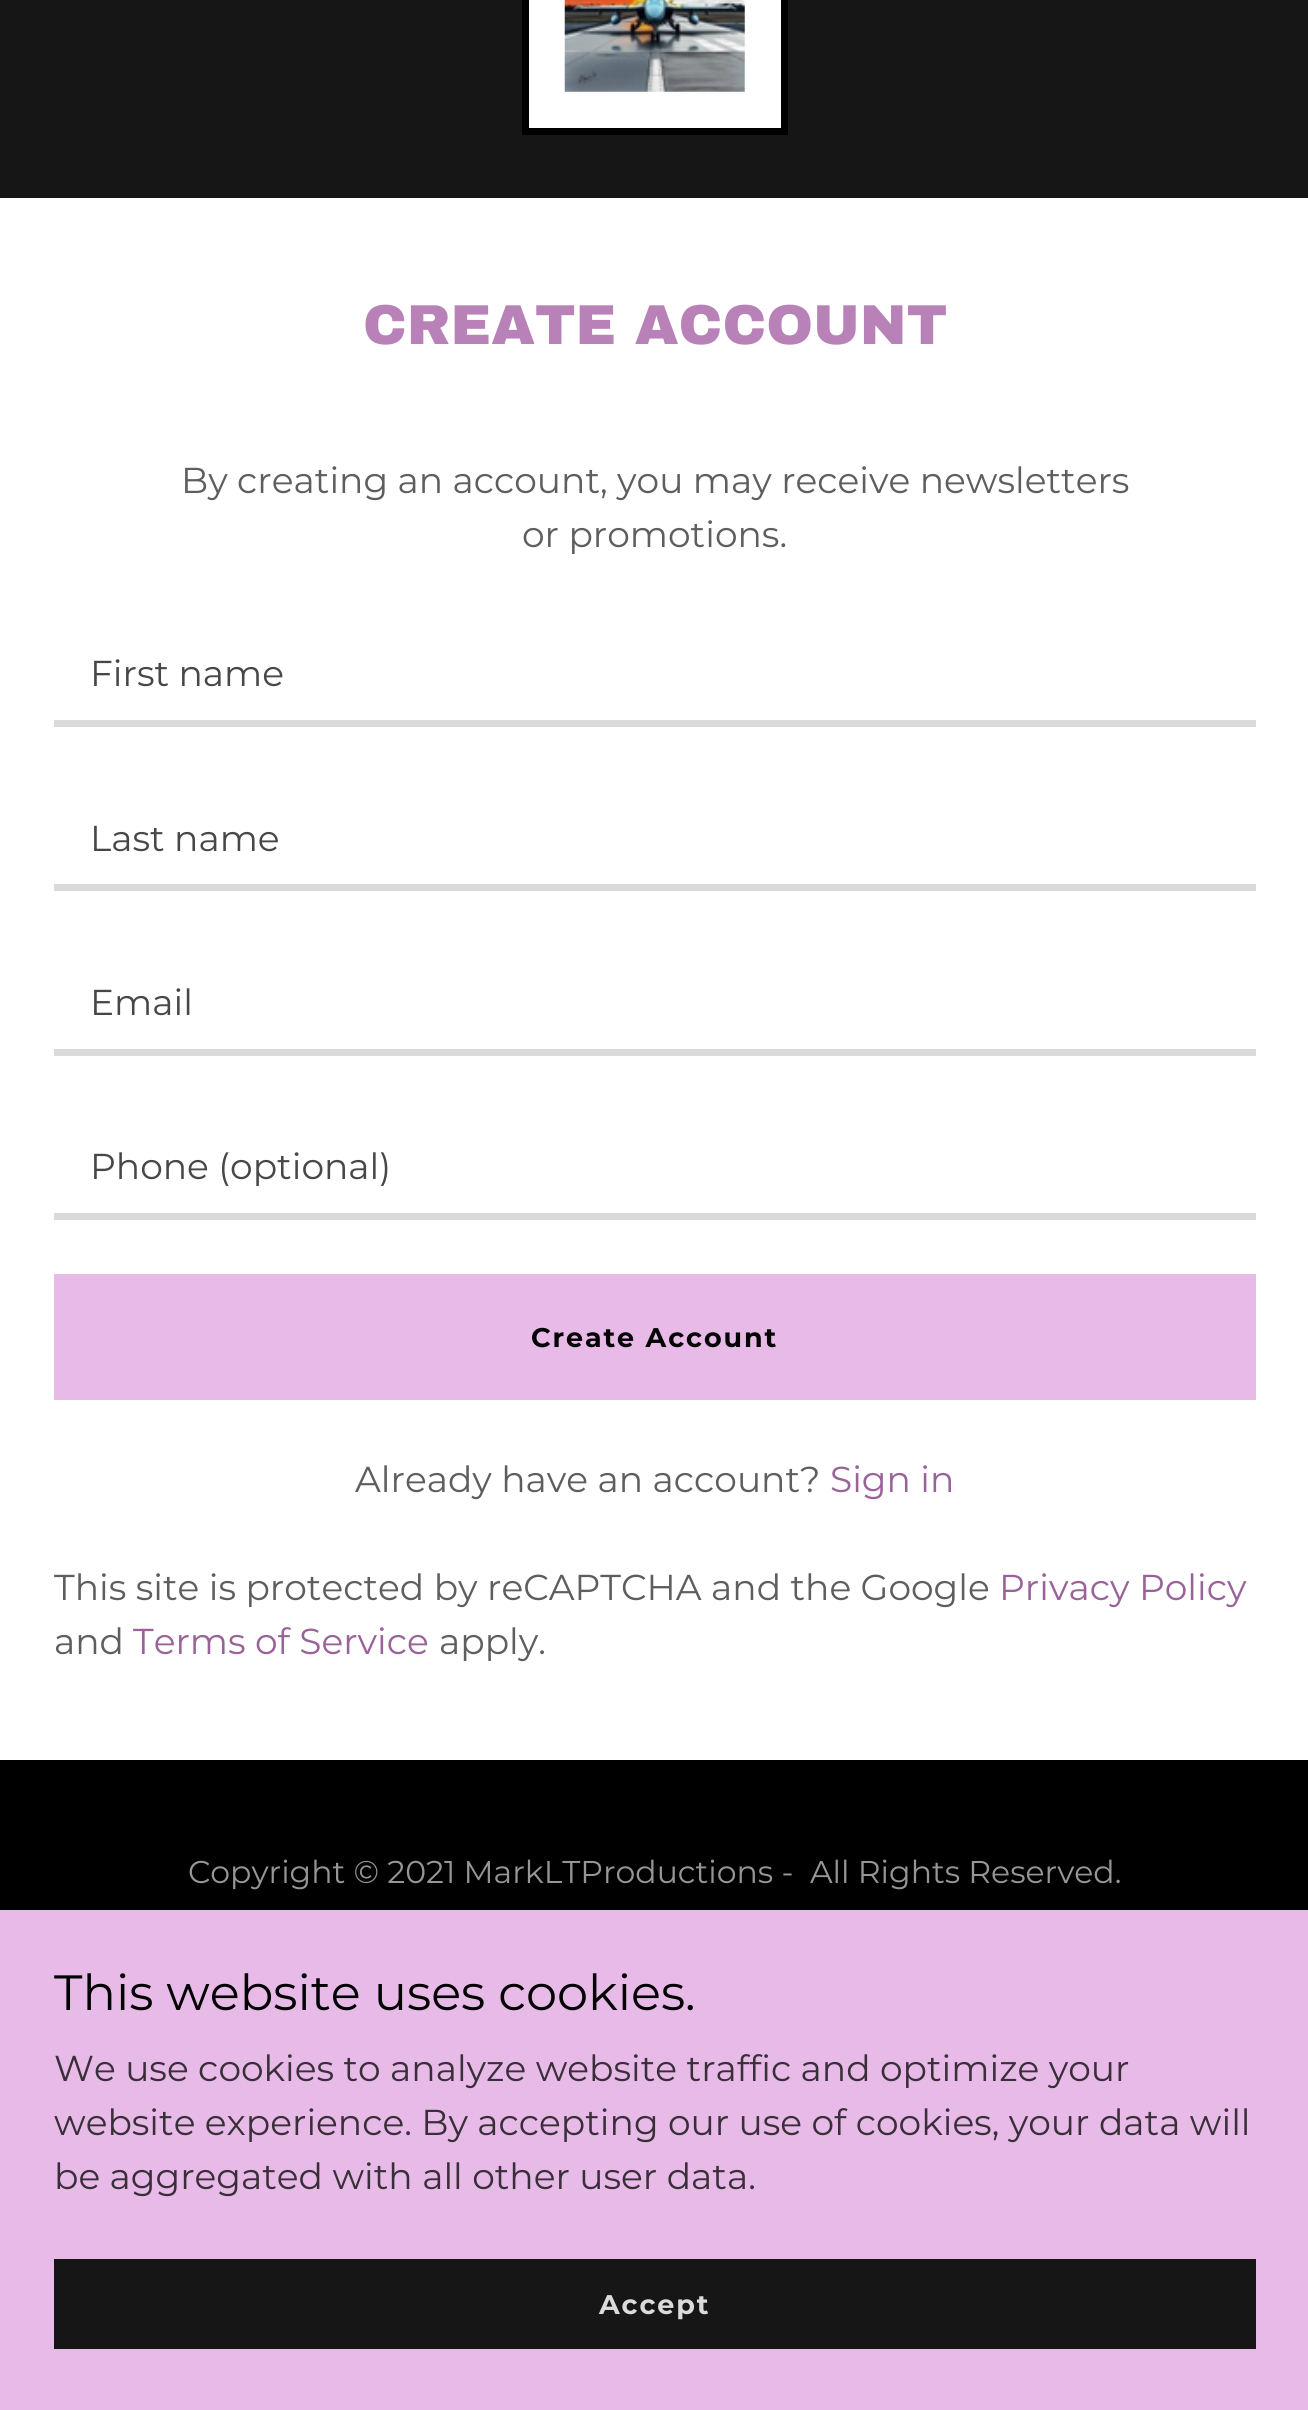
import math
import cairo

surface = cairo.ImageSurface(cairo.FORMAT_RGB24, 1308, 2410)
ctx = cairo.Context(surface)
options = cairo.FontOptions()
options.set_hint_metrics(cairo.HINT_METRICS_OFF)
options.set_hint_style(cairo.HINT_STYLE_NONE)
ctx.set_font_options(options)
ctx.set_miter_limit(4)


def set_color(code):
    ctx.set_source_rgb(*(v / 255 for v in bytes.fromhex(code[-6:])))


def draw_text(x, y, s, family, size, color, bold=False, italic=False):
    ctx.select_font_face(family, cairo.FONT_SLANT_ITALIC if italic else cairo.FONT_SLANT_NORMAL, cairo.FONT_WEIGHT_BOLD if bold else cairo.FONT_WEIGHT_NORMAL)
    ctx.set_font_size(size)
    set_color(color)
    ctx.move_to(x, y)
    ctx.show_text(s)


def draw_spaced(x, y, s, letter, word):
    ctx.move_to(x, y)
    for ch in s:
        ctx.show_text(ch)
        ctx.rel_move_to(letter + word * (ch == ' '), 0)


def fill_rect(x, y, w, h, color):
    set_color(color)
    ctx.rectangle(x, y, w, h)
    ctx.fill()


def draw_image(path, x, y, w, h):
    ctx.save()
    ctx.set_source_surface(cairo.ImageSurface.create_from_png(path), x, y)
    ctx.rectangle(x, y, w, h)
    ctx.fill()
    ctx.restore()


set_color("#000000")
ctx.paint()
fill_rect(0, 0, 1308, 198, "#161616")
set_color("#ffffff")
ctx.rectangle(525.5, -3.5, 259, 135)
ctx.fill_preserve()
set_color("#000000")
ctx.set_line_width(7)
ctx.stroke()
draw_image("assets/img1.png", 564, 0, 181, 92)
fill_rect(0, 198, 1308, 1562, "#ffffff")
draw_text(363, 344, "CREATE ACCOUNT", "Archivo Black Black", 56.25, "#b882b8")
draw_text(181, 493, "By creating an account, you may receive newsletters", "Montserrat", 36, "#5e5e5e")
draw_text(522, 547, "or promotions.", "Montserrat", 36, "#5e5e5e")
fill_rect(54, 720, 1202, 7, "#dadada")
draw_text(90, 686, "First name", "Montserrat", 36, "#474747")
fill_rect(54, 884, 1202, 7, "#dadada")
draw_text(90, 851, "Last name", "Montserrat", 36, "#474747")
fill_rect(54, 1049, 1202, 7, "#dadada")
draw_text(90, 1015, "Email", "Montserrat", 36, "#474747")
fill_rect(54, 1213, 1202, 7, "#dadada")
draw_text(90, 1179, "Phone (optional)", "Montserrat", 36, "#474747")
fill_rect(54, 1274, 1202, 126, "#e8bae8")
ctx.select_font_face("Montserrat", cairo.FONT_SLANT_NORMAL, cairo.FONT_WEIGHT_BOLD)
ctx.set_font_size(27)
set_color("#030303")
draw_spaced(531, 1347, "Create Account", 1.9, 0)
draw_text(355, 1492, "Already have an account?", "Montserrat", 36, "#5e5e5e")
draw_text(830, 1492, "Sign in", "Montserrat", 36, "#996399")
draw_text(54, 1600, "This site is protected by reCAPTCHA and the Google", "Montserrat", 36, "#5e5e5e")
draw_text(999, 1600, "Privacy Policy", "Montserrat", 36, "#996399")
draw_text(54, 1654, "and", "Montserrat", 36, "#5e5e5e")
draw_text(133, 1654, "Terms of Service", "Montserrat", 36, "#996399")
draw_text(439, 1654, "apply.", "Montserrat", 36, "#5e5e5e")
draw_text(188, 1883, "Copyright © 2021 MarkLTProductions -  All Rights Reserved.", "Montserrat", 31.5, "#969696")
fill_rect(0, 1910, 1308, 500, "#e8bae8")
draw_text(54, 2010, "This website uses cookies.", "Montserrat", 49.5, "#030303")
draw_text(54, 2081, "We use cookies to analyze website traffic and optimize your", "Montserrat", 36, "#392f39")
draw_text(54, 2135, "website experience. By accepting our use of cookies, your data will", "Montserrat", 36, "#392f39")
draw_text(54, 2189, "be aggregated with all other user data.", "Montserrat", 36, "#392f39")
fill_rect(54, 2259, 1202, 90, "#161616")
ctx.select_font_face("Montserrat", cairo.FONT_SLANT_NORMAL, cairo.FONT_WEIGHT_BOLD)
ctx.set_font_size(27)
set_color("#dbdbdb")
draw_spaced(599, 2314, "Accept", 1.9, 0)
surface.write_to_png("output.png")
